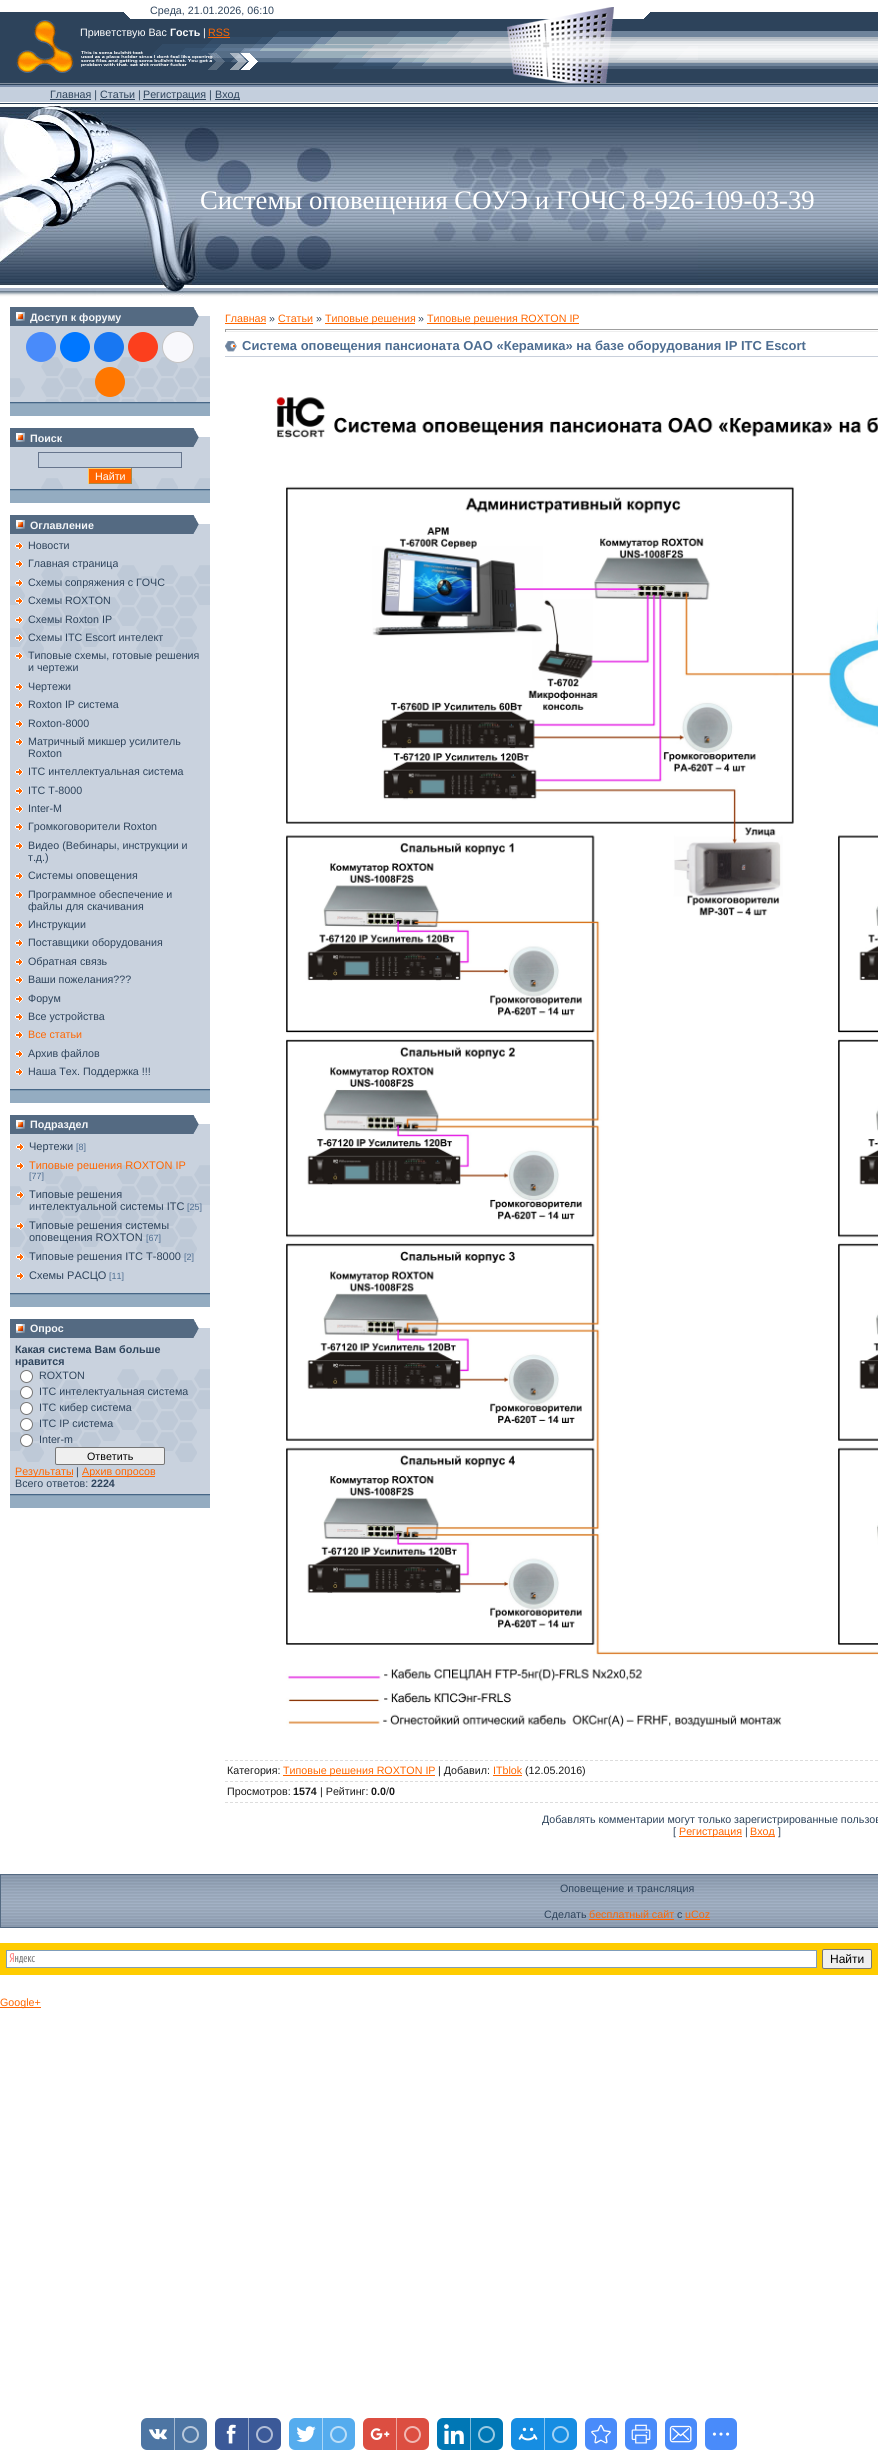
import math
import cairo

surface = cairo.ImageSurface(cairo.FORMAT_RGB24, 878, 2454)
ctx = cairo.Context(surface)
options = cairo.FontOptions()
options.set_hint_metrics(cairo.HINT_METRICS_OFF)
options.set_hint_style(cairo.HINT_STYLE_NONE)
ctx.set_font_options(options)
ctx.set_miter_limit(4)


def set_color(code):
    ctx.set_source_rgb(*(v / 255 for v in bytes.fromhex(code[-6:])))


def draw_text(x, y, s, family, size, color, bold=False, italic=False):
    ctx.select_font_face(family, cairo.FONT_SLANT_ITALIC if italic else cairo.FONT_SLANT_NORMAL, cairo.FONT_WEIGHT_BOLD if bold else cairo.FONT_WEIGHT_NORMAL)
    ctx.set_font_size(size)
    set_color(color)
    ctx.move_to(x, y)
    ctx.show_text(s)


def fill_rect(x, y, w, h, color):
    set_color(color)
    ctx.rectangle(x, y, w, h)
    ctx.fill()


def rounded_rect(x, y, w, h, r):
    ctx.new_sub_path()
    for i, (u, v) in enumerate([(x + w - r, y + h - r), (x + r, y + h - r), (x + r, y + r), (x + w - r, y + r)]):
        ctx.arc(u, v, r, i * math.pi / 2, (i + 1) * math.pi / 2)
    ctx.close_path()


def draw_image(path, x, y, w, h):
    ctx.save()
    ctx.set_source_surface(cairo.ImageSurface.create_from_png(path), x, y)
    ctx.rectangle(x, y, w, h)
    ctx.fill()
    ctx.restore()


set_color("#ffffff")
ctx.paint()
draw_image("assets/img1.png", 0, 12, 878, 72)
draw_image("assets/img2.png", 124, 7, 526, 12)
draw_text(150, 14, "Среда, 21.01.2026, 06:10", "Liberation Sans", 10.7, "#2d435b")
draw_image("assets/img3.png", 0, 19, 698, 65)
draw_text(80, 36, "Приветствую Вас", "Liberation Sans", 10.7, "#ffffff")
draw_text(170, 36, "Гость", "Liberation Sans", 10.7, "#ffffff", bold=True)
draw_text(203, 36, "|", "Liberation Sans", 10.7, "#ffffff")
draw_text(208, 36, "RSS", "Liberation Sans", 10.7, "#ff6600")
fill_rect(208, 37, 22, 1, "#ff6600")
draw_image("assets/img4.png", 0, 84, 878, 20)
fill_rect(50, 99, 41, 1, "#2d435b")
draw_text(50, 98, "Главная | Статьи |", "Liberation Sans", 10.7, "#2d435b")
fill_rect(143, 99, 63, 1, "#2d435b")
draw_text(143, 98, "Регистрация |", "Liberation Sans", 10.7, "#2d435b")
fill_rect(215, 99, 25, 1, "#2d435b")
draw_text(215, 98, "Вход", "Liberation Sans", 10.7, "#2d435b")
fill_rect(100, 99, 35, 1, "#2d435b")
draw_image("assets/img5.png", 0, 104, 878, 193)
draw_image("assets/img6.png", 0, 104, 698, 192)
draw_text(200, 209, "Системы оповещения СОУЭ и ГОЧС 8-926-109-03-39", "Liberation Serif", 26.7, "#ffffff")
fill_rect(10, 307, 6, 19, "#546a82")
draw_image("assets/img7.png", 16, 307, 194, 19)
draw_text(30, 321, "Доступ к форуму", "Liberation Sans", 10.7, "#f5f7f9", bold=True)
fill_rect(10, 326, 200, 31, "#c9d2de")
draw_image("assets/img8.png", 10, 357, 200, 45)
set_color("#498bfa")
ctx.arc(41, 347, 15, 0, 2 * math.pi)
ctx.fill()
set_color("#0077ff")
ctx.arc(75, 347, 15, 0, 2 * math.pi)
ctx.fill()
set_color("#1877f2")
ctx.arc(109, 347, 15, 0, 2 * math.pi)
ctx.fill()
set_color("#fc3f1d")
ctx.arc(143, 347, 15, 0, 2 * math.pi)
ctx.fill()
set_color("#f8f8fc")
ctx.arc(178, 347, 15.5, 0, 2 * math.pi)
ctx.fill_preserve()
set_color("#c4c4c4")
ctx.set_line_width(1)
ctx.stroke()
set_color("#ff7700")
ctx.arc(110, 382, 15, 0, 2 * math.pi)
ctx.fill()
draw_image("assets/img9.png", 10, 402, 200, 14)
fill_rect(10, 428, 6, 19, "#546a82")
draw_image("assets/img7.png", 16, 428, 194, 19)
draw_text(30, 442, "Поиск", "Liberation Sans", 10.7, "#f5f7f9", bold=True)
fill_rect(10, 447, 200, 42, "#c9d2de")
draw_image("assets/img10.png", 41, 478, 169, 11)
set_color("#c4cfdd")
ctx.rectangle(38.5, 452.5, 143, 15)
ctx.fill_preserve()
set_color("#66758c")
ctx.stroke()
fill_rect(89, 469, 42, 14, "#ff6600")
fill_rect(88, 468, 44, 1, "#ffcc66")
fill_rect(131, 468, 1, 16, "#aa8844")
fill_rect(88, 483, 44, 1, "#aa8844")
fill_rect(88, 468, 1, 16, "#ffcc66")
draw_text(95, 480, "Найти", "Liberation Sans", 10.7, "#ffffff")
draw_image("assets/img9.png", 10, 489, 200, 14)
fill_rect(10, 515, 6, 19, "#546a82")
draw_image("assets/img7.png", 16, 515, 194, 19)
draw_text(30, 529, "Оглавление", "Liberation Sans", 10.7, "#f5f7f9", bold=True)
fill_rect(10, 534, 200, 555, "#c9d2de")
draw_image("assets/img11.png", 10, 565, 200, 93)
draw_image("assets/img12.png", 15, 542, 8, 8)
draw_text(28, 549, "Новости", "Liberation Sans", 10.7, "#2d435b")
draw_image("assets/img12.png", 15, 560, 8, 8)
draw_text(28, 567, "Главная страница", "Liberation Sans", 10.7, "#2d435b")
draw_image("assets/img13.png", 15, 579, 8, 8)
draw_text(28, 586, "Схемы сопряжения с ГОЧС", "Liberation Sans", 10.7, "#2d435b")
draw_image("assets/img14.png", 15, 597, 8, 8)
draw_text(28, 604, "Схемы ROXTON", "Liberation Sans", 10.7, "#2d435b")
draw_image("assets/img12.png", 15, 616, 8, 8)
draw_text(28, 623, "Схемы Roxton IP", "Liberation Sans", 10.7, "#2d435b")
draw_image("assets/img15.png", 15, 634, 8, 8)
draw_text(28, 641, "Схемы ITC Escort интелект", "Liberation Sans", 10.7, "#2d435b")
draw_image("assets/img12.png", 15, 652, 8, 8)
draw_text(28, 659, "Типовые схемы, готовые решения", "Liberation Sans", 10.7, "#2d435b")
draw_text(28, 671, "и чертежи", "Liberation Sans", 10.7, "#2d435b")
draw_image("assets/img12.png", 15, 683, 8, 8)
draw_text(28, 690, "Чертежи", "Liberation Sans", 10.7, "#2d435b")
draw_image("assets/img12.png", 15, 701, 8, 8)
draw_text(28, 708, "Roxton IP система", "Liberation Sans", 10.7, "#2d435b")
draw_image("assets/img12.png", 15, 720, 8, 8)
draw_text(28, 727, "Roxton-8000", "Liberation Sans", 10.7, "#2d435b")
draw_image("assets/img12.png", 15, 738, 8, 8)
draw_text(28, 745, "Матричный микшер усилитель", "Liberation Sans", 10.7, "#2d435b")
draw_text(28, 757, "Roxton", "Liberation Sans", 10.7, "#2d435b")
draw_image("assets/img12.png", 15, 768, 8, 8)
draw_text(28, 775, "ITC интеллектуальная система", "Liberation Sans", 10.7, "#2d435b")
draw_image("assets/img12.png", 15, 787, 8, 8)
draw_text(28, 794, "ITC T-8000", "Liberation Sans", 10.7, "#2d435b")
draw_image("assets/img12.png", 15, 805, 8, 8)
draw_text(28, 812, "Inter-M", "Liberation Sans", 10.7, "#2d435b")
draw_image("assets/img12.png", 15, 823, 8, 8)
draw_text(28, 830, "Громкоговорители Roxton", "Liberation Sans", 10.7, "#2d435b")
draw_image("assets/img12.png", 15, 842, 8, 8)
draw_text(28, 849, "Видео (Вебинары, инструкции и", "Liberation Sans", 10.7, "#2d435b")
draw_text(28, 861, "т.д.)", "Liberation Sans", 10.7, "#2d435b")
draw_image("assets/img12.png", 15, 872, 8, 8)
draw_text(28, 879, "Системы оповещения", "Liberation Sans", 10.7, "#2d435b")
draw_image("assets/img12.png", 15, 891, 8, 8)
draw_text(28, 898, "Программное обеспечение и", "Liberation Sans", 10.7, "#2d435b")
draw_text(28, 910, "файлы для скачивания", "Liberation Sans", 10.7, "#2d435b")
draw_image("assets/img12.png", 15, 921, 8, 8)
draw_text(28, 928, "Инструкции", "Liberation Sans", 10.7, "#2d435b")
draw_image("assets/img12.png", 15, 939, 8, 8)
draw_text(28, 946, "Поставщики оборудования", "Liberation Sans", 10.7, "#2d435b")
draw_image("assets/img12.png", 15, 958, 8, 8)
draw_text(28, 965, "Обратная связь", "Liberation Sans", 10.7, "#2d435b")
draw_image("assets/img12.png", 15, 976, 8, 8)
draw_text(28, 983, "Ваши пожелания???", "Liberation Sans", 10.7, "#2d435b")
draw_image("assets/img12.png", 15, 995, 8, 8)
draw_text(28, 1002, "Форум", "Liberation Sans", 10.7, "#2d435b")
draw_image("assets/img12.png", 15, 1013, 8, 8)
draw_text(28, 1020, "Все устройства", "Liberation Sans", 10.7, "#2d435b")
draw_image("assets/img12.png", 15, 1031, 8, 8)
draw_text(28, 1038, "Все статьи", "Liberation Sans", 10.7, "#ff6600")
draw_image("assets/img12.png", 15, 1050, 8, 8)
draw_text(28, 1057, "Архив файлов", "Liberation Sans", 10.7, "#2d435b")
draw_image("assets/img12.png", 15, 1068, 8, 8)
draw_text(28, 1075, "Наша Тех. Поддержка !!!", "Liberation Sans", 10.7, "#2d435b")
draw_image("assets/img9.png", 10, 1089, 200, 14)
fill_rect(10, 1115, 6, 19, "#546a82")
draw_image("assets/img7.png", 16, 1115, 194, 19)
draw_text(30, 1128, "Подраздел", "Liberation Sans", 10.7, "#f5f7f9", bold=True)
fill_rect(10, 1134, 200, 159, "#c9d2de")
draw_image("assets/img11.png", 10, 1165, 200, 93)
draw_image("assets/img12.png", 16, 1143, 8, 8)
draw_text(29, 1150, "Чертежи", "Liberation Sans", 11, "#2d435b")
draw_text(76, 1150, "[8]", "Liberation Sans", 9, "#4d6d91")
draw_image("assets/img12.png", 16, 1162, 8, 8)
draw_text(29, 1169, "Типовые решения ROXTON IP", "Liberation Sans", 11, "#ff6600")
draw_text(29, 1179, "[77]", "Liberation Sans", 9, "#4d6d91")
draw_image("assets/img16.png", 16, 1191, 8, 8)
draw_text(29, 1198, "Типовые решения", "Liberation Sans", 11, "#2d435b")
draw_text(29, 1210, "интелектуальной системы ITC", "Liberation Sans", 11, "#2d435b")
draw_text(187, 1210, "[25]", "Liberation Sans", 9, "#4d6d91")
draw_image("assets/img17.png", 16, 1222, 8, 8)
draw_text(29, 1229, "Типовые решения системы", "Liberation Sans", 11, "#2d435b")
draw_text(29, 1241, "оповещения ROXTON", "Liberation Sans", 11, "#2d435b")
draw_text(146, 1241, "[67]", "Liberation Sans", 9, "#4d6d91")
draw_image("assets/img12.png", 16, 1253, 8, 8)
draw_text(29, 1260, "Типовые решения ITC T-8000", "Liberation Sans", 11, "#2d435b")
draw_text(184, 1260, "[2]", "Liberation Sans", 9, "#4d6d91")
draw_image("assets/img12.png", 16, 1272, 8, 8)
draw_text(29, 1279, "Схемы РАСЦО", "Liberation Sans", 11, "#2d435b")
draw_text(109, 1279, "[11]", "Liberation Sans", 9, "#4d6d91")
draw_image("assets/img9.png", 10, 1293, 200, 14)
fill_rect(10, 1319, 6, 19, "#546a82")
draw_image("assets/img7.png", 16, 1319, 194, 19)
draw_text(30, 1332, "Опрос", "Liberation Sans", 10.7, "#f5f7f9", bold=True)
fill_rect(10, 1338, 200, 156, "#c9d2de")
draw_image("assets/img11.png", 10, 1369, 200, 93)
draw_text(15, 1353, "Какая система Вам больше", "Liberation Sans", 10.7, "#2d435b", bold=True)
draw_text(15, 1365, "нравится", "Liberation Sans", 10.7, "#2d435b", bold=True)
set_color("#ffffff")
ctx.new_path()
ctx.arc(26.5, 1376.5, 6, 0, 2 * math.pi)
ctx.fill_preserve()
set_color("#767676")
ctx.stroke()
draw_text(39, 1379, "ROXTON", "Liberation Sans", 10.7, "#2d435b")
set_color("#ffffff")
ctx.new_path()
ctx.arc(26.5, 1392.5, 6, 0, 2 * math.pi)
ctx.fill_preserve()
set_color("#767676")
ctx.stroke()
draw_text(39, 1395, "ITC интелектуальная система", "Liberation Sans", 10.7, "#2d435b")
set_color("#ffffff")
ctx.new_path()
ctx.arc(26.5, 1408.5, 6, 0, 2 * math.pi)
ctx.fill_preserve()
set_color("#767676")
ctx.stroke()
draw_text(39, 1411, "ITC кибер система", "Liberation Sans", 10.7, "#2d435b")
set_color("#ffffff")
ctx.new_path()
ctx.arc(26.5, 1424.5, 6, 0, 2 * math.pi)
ctx.fill_preserve()
set_color("#767676")
ctx.stroke()
draw_text(39, 1427, "ITC IP система", "Liberation Sans", 10.7, "#2d435b")
set_color("#ffffff")
ctx.new_path()
ctx.arc(26.5, 1440.5, 6, 0, 2 * math.pi)
ctx.fill_preserve()
set_color("#767676")
ctx.stroke()
draw_text(39, 1443, "Inter-m", "Liberation Sans", 10.7, "#2d435b")
set_color("#efefef")
rounded_rect(55.5, 1447.5, 109, 17, 1.5)
ctx.fill_preserve()
set_color("#767676")
ctx.stroke()
draw_text(87, 1460, "Ответить", "Liberation Sans", 10.7, "#000000")
fill_rect(15, 1476, 58, 1, "#ff6600")
draw_text(15, 1475, "Результаты", "Liberation Sans", 10.7, "#ff6600")
draw_text(76, 1475, "|", "Liberation Sans", 10.7, "#2d435b")
fill_rect(82, 1476, 73, 1, "#ff6600")
draw_text(82, 1475, "Архив опросов", "Liberation Sans", 10.7, "#ff6600")
draw_text(15, 1487, "Всего ответов:", "Liberation Sans", 10.7, "#2d435b")
draw_text(91, 1487, "2224", "Liberation Sans", 10.7, "#2d435b", bold=True)
draw_image("assets/img9.png", 10, 1494, 200, 14)
draw_text(225, 322, "Главная", "Liberation Sans", 10.7, "#ff6600")
fill_rect(225, 323, 41, 1, "#ff6600")
draw_text(269, 322, "»", "Liberation Sans", 10.7, "#2d435b")
draw_text(278, 322, "Статьи", "Liberation Sans", 10.7, "#ff6600")
fill_rect(278, 323, 35, 1, "#ff6600")
draw_text(316, 322, "»", "Liberation Sans", 10.7, "#2d435b")
fill_rect(325, 323, 90, 1, "#ff6600")
draw_text(325, 322, "Типовые решения", "Liberation Sans", 10.7, "#ff6600")
draw_text(418, 322, "»", "Liberation Sans", 10.7, "#2d435b")
fill_rect(427, 323, 152, 1, "#ff6600")
draw_text(427, 322, "Типовые решения ROXTON IP", "Liberation Sans", 10.7, "#ff6600")
fill_rect(225, 329, 653, 1, "#9f9f9f")
fill_rect(225, 331, 653, 1, "#eeeeee")
fill_rect(225, 329, 1, 3, "#9f9f9f")
draw_image("assets/img18.png", 225, 341, 12, 11)
draw_text(242, 350, "Система оповещения пансионата ОАО «Керамика» на базе оборудования IP ITC Escort", "Liberation Sans", 13, "#4d6d91", bold=True)
fill_rect(225, 356, 653, 1, "#c9d0db")
draw_image("assets/img19.png", 276, 397, 602, 1330)
ctx.new_path()
ctx.move_to(225, 1760.5)
ctx.line_to(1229, 1760.5)
set_color("#dddddd")
ctx.set_dash([3, 2])
ctx.stroke()
ctx.new_path()
ctx.move_to(225, 1781.5)
ctx.line_to(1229, 1781.5)
ctx.stroke()
draw_text(227, 1774, "Категория:", "Liberation Sans", 10.7, "#1a1a1a")
fill_rect(283, 1775, 152, 1, "#ff6600")
draw_text(283, 1774, "Типовые решения ROXTON IP", "Liberation Sans", 10.7, "#ff6600")
draw_text(438, 1774, "| Добавил:", "Liberation Sans", 10.7, "#1a1a1a")
draw_text(493, 1774, "ITblok", "Liberation Sans", 10.7, "#ff6600")
fill_rect(493, 1775, 29, 1, "#ff6600")
draw_text(525, 1774, "(12.05.2016)", "Liberation Sans", 10.7, "#1a1a1a")
ctx.new_path()
ctx.move_to(225, 1802.5)
ctx.line_to(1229, 1802.5)
set_color("#dddddd")
ctx.stroke()
draw_text(227, 1795, "Просмотров:", "Liberation Sans", 10.7, "#1a1a1a")
draw_text(293, 1795, "1574", "Liberation Sans", 10.7, "#1a1a1a", bold=True)
draw_text(320, 1795, "| Рейтинг:", "Liberation Sans", 10.7, "#1a1a1a")
draw_text(371, 1795, "0.0", "Liberation Sans", 10.7, "#1a1a1a", bold=True)
draw_text(386, 1795, "/", "Liberation Sans", 10.7, "#1a1a1a")
draw_text(389, 1795, "0", "Liberation Sans", 10.7, "#1a1a1a", bold=True)
draw_text(542, 1823, "Добавлять комментарии могут только зарегистрированные пользов", "Liberation Sans", 10.7, "#2d435b")
draw_text(673, 1835, "[", "Liberation Sans", 10.7, "#2d435b")
fill_rect(679, 1836, 63, 1, "#ff6600")
draw_text(679, 1835, "Регистрация", "Liberation Sans", 10.7, "#ff6600")
draw_text(745, 1835, "|", "Liberation Sans", 10.7, "#2d435b")
fill_rect(750, 1836, 25, 1, "#ff6600")
draw_text(750, 1835, "Вход", "Liberation Sans", 10.7, "#ff6600")
draw_text(778, 1835, "]", "Liberation Sans", 10.7, "#2d435b")
draw_image("assets/img20.png", 1, 1875, 877, 52)
ctx.rectangle(0.5, 1874.5, 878, 53)
set_color("#546a82")
ctx.set_dash([])
ctx.stroke()
draw_text(560, 1892, "Оповещение и трансляция", "Liberation Sans", 10.7, "#2d435b")
draw_text(544, 1918, "Сделать", "Liberation Sans", 10.7, "#2d435b")
draw_text(589, 1918, "бесплатный сайт", "Liberation Sans", 10.7, "#ff6600")
fill_rect(589, 1919, 85, 1, "#ff6600")
draw_text(677, 1918, "с", "Liberation Sans", 10.7, "#2d435b")
draw_text(685, 1918, "uCoz", "Liberation Sans", 10.7, "#ff6600")
fill_rect(685, 1919, 25, 1, "#ff6600")
fill_rect(0, 1943, 878, 32, "#ffcc00")
fill_rect(7, 1951, 809, 16, "#ffffff")
draw_image("assets/img21.png", 9, 1953, 26, 11)
ctx.rectangle(6.5, 1950.5, 810, 17)
set_color("#7f9db9")
ctx.stroke()
set_color("#efefef")
rounded_rect(822.5, 1949.5, 49, 19, 1.5)
ctx.fill_preserve()
set_color("#767676")
ctx.stroke()
draw_text(830, 1963, "Найти", "Liberation Sans", 12, "#000000")
fill_rect(0, 2007, 41, 1, "#ff6600")
draw_text(0, 2006, "Google+", "Liberation Sans", 10.7, "#ff6600")
set_color("#4d75a3")
rounded_rect(141, 2418, 66, 32, 6)
ctx.fill()
draw_image("assets/img22.png", 149, 2429, 18, 11)
fill_rect(174, 2418, 1, 32, "#a6bad1")
ctx.arc(190.5, 2434.5, 7.5, 0, 2 * math.pi)
set_color("#b8c8da")
ctx.set_line_width(2)
ctx.stroke()
set_color("#3b5998")
rounded_rect(215, 2418, 66, 32, 6)
ctx.fill()
draw_image("assets/img23.png", 226, 2424, 10, 20)
fill_rect(248, 2418, 1, 32, "#9daccc")
ctx.arc(264.5, 2434.5, 7.5, 0, 2 * math.pi)
set_color("#b1bdd6")
ctx.stroke()
set_color("#55acee")
rounded_rect(289, 2418, 66, 32, 6)
ctx.fill()
draw_image("assets/img24.png", 296, 2426, 20, 16)
fill_rect(322, 2418, 1, 32, "#aad6f7")
ctx.arc(338.5, 2434.5, 7.5, 0, 2 * math.pi)
set_color("#bbdef8")
ctx.stroke()
set_color("#dc4e41")
rounded_rect(363, 2418, 66, 32, 6)
ctx.fill()
draw_image("assets/img25.png", 370, 2428, 20, 12)
fill_rect(396, 2418, 1, 32, "#eea7a0")
ctx.arc(412.5, 2434.5, 7.5, 0, 2 * math.pi)
set_color("#f1b8b3")
ctx.stroke()
set_color("#0077b5")
rounded_rect(437, 2418, 66, 32, 6)
ctx.fill()
draw_image("assets/img26.png", 444, 2424, 20, 20)
fill_rect(470, 2418, 1, 32, "#80bbda")
ctx.arc(486.5, 2434.5, 7.5, 0, 2 * math.pi)
set_color("#99c9e1")
ctx.stroke()
set_color("#168de2")
rounded_rect(511, 2418, 66, 32, 6)
ctx.fill()
draw_image("assets/img27.png", 518, 2427, 20, 14)
fill_rect(544, 2418, 1, 32, "#8bc6f1")
ctx.arc(560.5, 2434.5, 7.5, 0, 2 * math.pi)
set_color("#a2d1f3")
ctx.stroke()
set_color("#498bfa")
rounded_rect(585, 2418, 32, 32, 6)
ctx.fill()
draw_image("assets/img28.png", 591, 2424, 20, 20)
rounded_rect(625, 2418, 32, 32, 6)
ctx.fill()
draw_image("assets/img29.png", 631, 2424, 20, 20)
rounded_rect(665, 2418, 32, 32, 6)
ctx.fill()
draw_image("assets/img30.png", 669, 2425, 23, 18)
rounded_rect(705, 2418, 32, 32, 6)
ctx.fill()
draw_image("assets/img31.png", 712, 2432, 18, 4)
surface.write_to_png("output.png")
